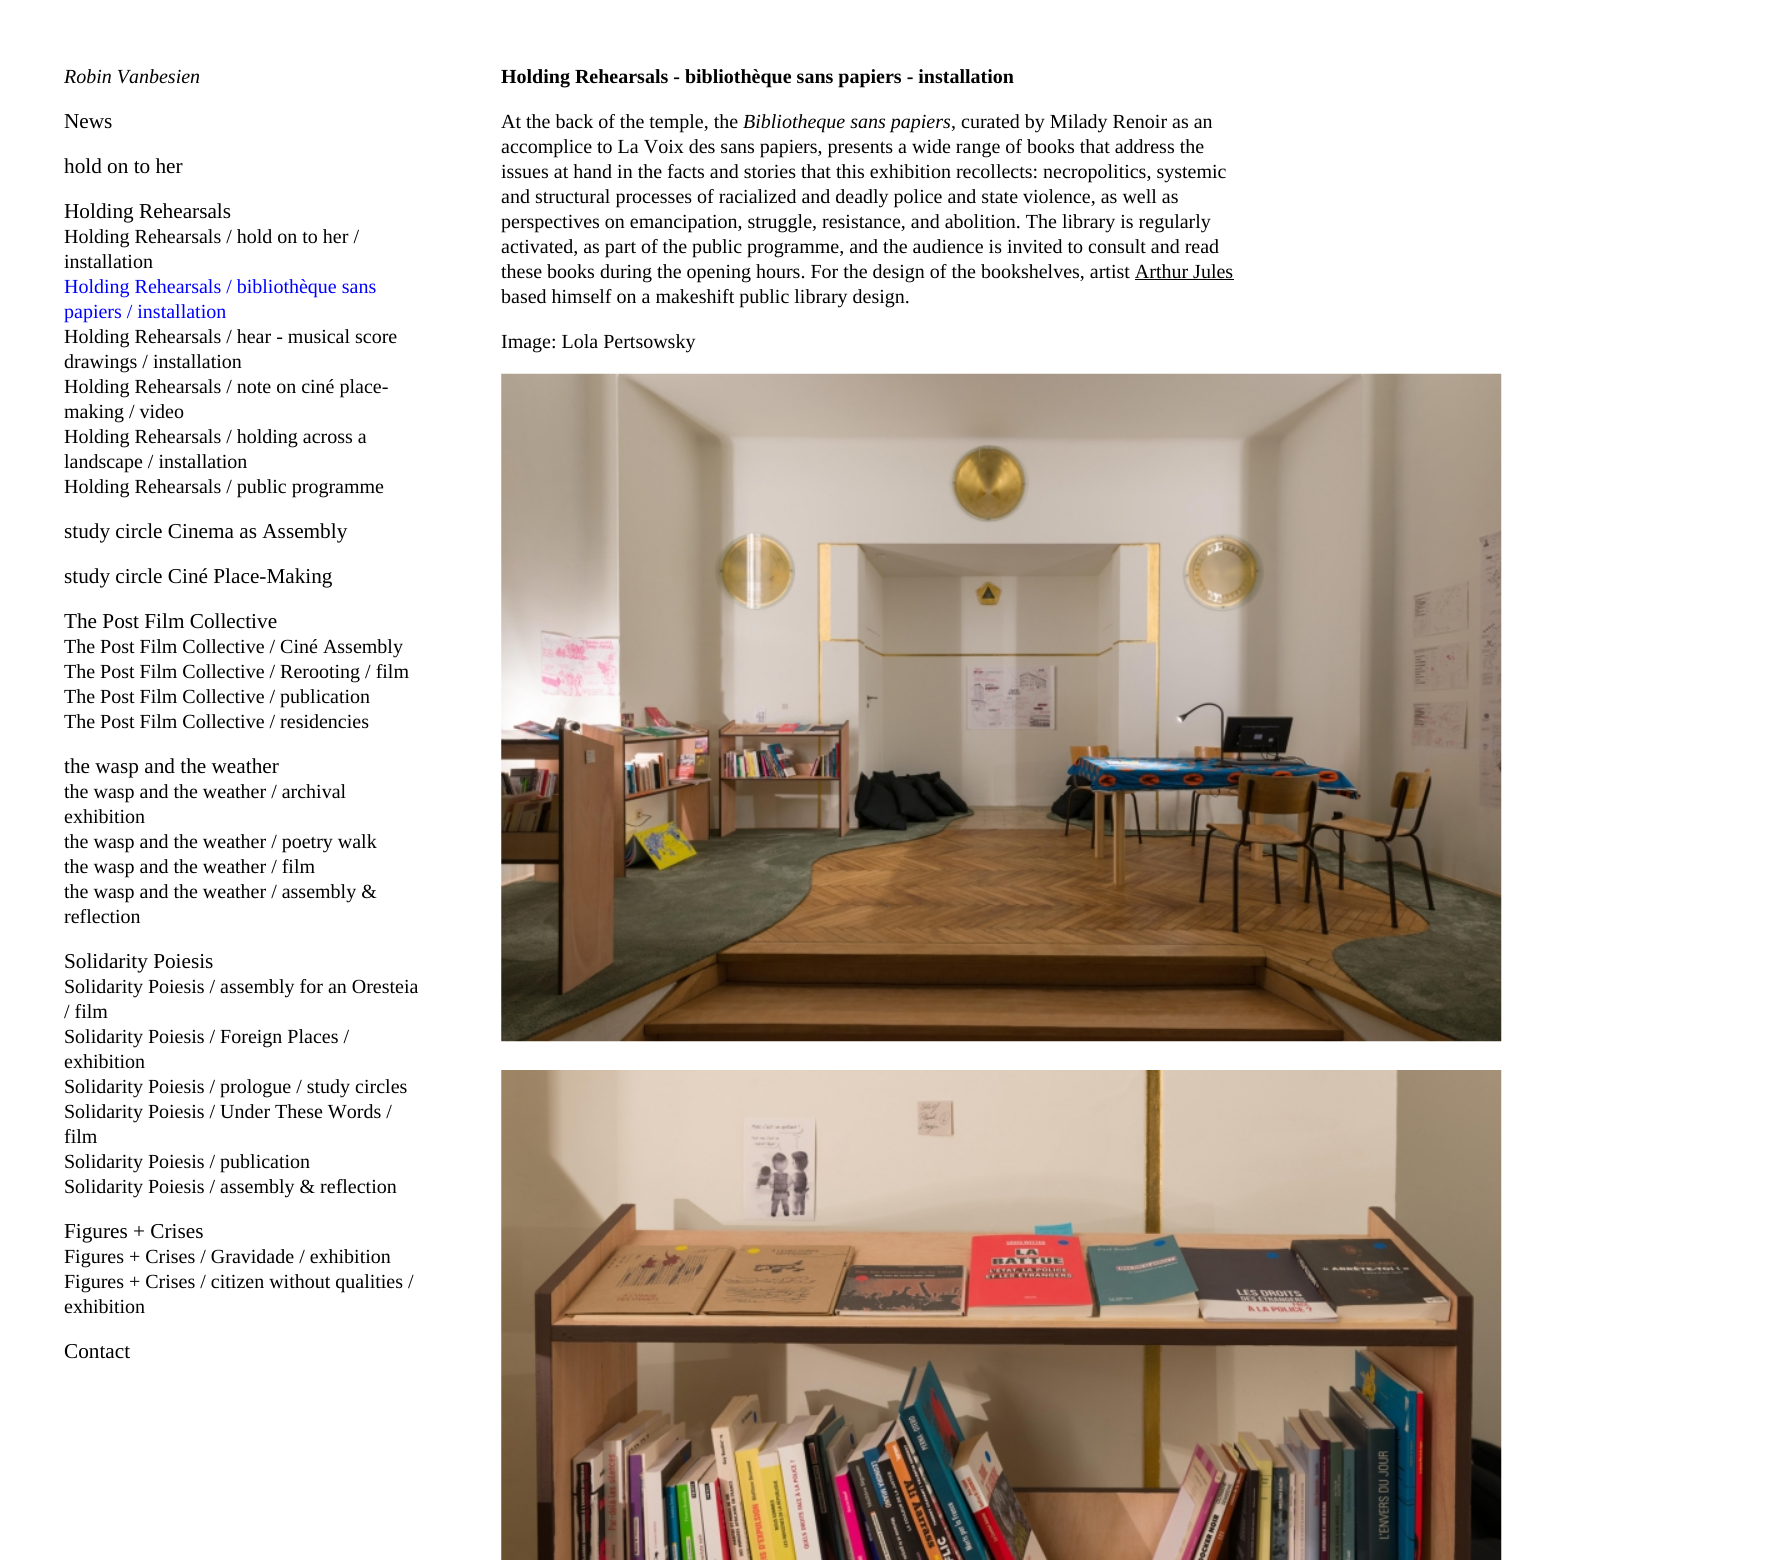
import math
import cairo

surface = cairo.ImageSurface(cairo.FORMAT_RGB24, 1773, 1560)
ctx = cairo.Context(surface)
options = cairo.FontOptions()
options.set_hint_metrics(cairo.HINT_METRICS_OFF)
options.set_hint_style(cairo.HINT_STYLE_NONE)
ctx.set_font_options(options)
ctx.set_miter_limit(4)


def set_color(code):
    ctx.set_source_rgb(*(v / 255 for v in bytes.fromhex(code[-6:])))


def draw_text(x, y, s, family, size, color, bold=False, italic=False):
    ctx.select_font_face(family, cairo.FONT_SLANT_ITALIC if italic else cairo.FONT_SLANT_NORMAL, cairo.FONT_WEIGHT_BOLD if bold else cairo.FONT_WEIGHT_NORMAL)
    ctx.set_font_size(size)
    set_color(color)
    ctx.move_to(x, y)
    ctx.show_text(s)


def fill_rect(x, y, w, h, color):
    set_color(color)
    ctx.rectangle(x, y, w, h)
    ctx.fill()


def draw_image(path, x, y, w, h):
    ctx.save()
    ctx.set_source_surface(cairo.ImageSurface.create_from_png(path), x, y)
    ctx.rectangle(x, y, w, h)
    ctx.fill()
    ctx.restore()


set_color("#ffffff")
ctx.paint()
draw_text(64, 83, "Robin Vanbesien", "Liberation Serif", 20, "#000000", italic=True)
draw_text(64, 128, "News", "Liberation Serif", 21.25, "#000000")
draw_text(64, 173, "hold on to her", "Liberation Serif", 21.25, "#000000")
draw_text(64, 218, "Holding Rehearsals", "Liberation Serif", 21.25, "#000000")
draw_text(64, 243, "Holding Rehearsals / hold on to her /", "Liberation Serif", 20, "#000000")
draw_text(64, 268, "installation", "Liberation Serif", 20, "#000000")
draw_text(64, 293, "Holding Rehearsals / bibliothèque sans", "Liberation Serif", 20, "#0000ff")
draw_text(64, 318, "papiers / installation", "Liberation Serif", 20, "#0000ff")
draw_text(64, 343, "Holding Rehearsals / hear - musical score", "Liberation Serif", 20, "#000000")
draw_text(64, 368, "drawings / installation", "Liberation Serif", 20, "#000000")
draw_text(64, 393, "Holding Rehearsals / note on ciné place-", "Liberation Serif", 20, "#000000")
draw_text(64, 418, "making / video", "Liberation Serif", 20, "#000000")
draw_text(64, 443, "Holding Rehearsals / holding across a", "Liberation Serif", 20, "#000000")
draw_text(64, 468, "landscape / installation", "Liberation Serif", 20, "#000000")
draw_text(64, 493, "Holding Rehearsals / public programme", "Liberation Serif", 20, "#000000")
draw_text(64, 538, "study circle Cinema as Assembly", "Liberation Serif", 21.25, "#000000")
draw_text(64, 583, "study circle Ciné Place-Making", "Liberation Serif", 21.25, "#000000")
draw_text(64, 628, "The Post Film Collective", "Liberation Serif", 21.25, "#000000")
draw_text(64, 653, "The Post Film Collective / Ciné Assembly", "Liberation Serif", 20, "#000000")
draw_text(64, 678, "The Post Film Collective / Rerooting / film", "Liberation Serif", 20, "#000000")
draw_text(64, 703, "The Post Film Collective / publication", "Liberation Serif", 20, "#000000")
draw_text(64, 728, "The Post Film Collective / residencies", "Liberation Serif", 20, "#000000")
draw_text(64, 773, "the wasp and the weather", "Liberation Serif", 21.25, "#000000")
draw_text(64, 798, "the wasp and the weather / archival", "Liberation Serif", 20, "#000000")
draw_text(64, 823, "exhibition", "Liberation Serif", 20, "#000000")
draw_text(64, 848, "the wasp and the weather / poetry walk", "Liberation Serif", 20, "#000000")
draw_text(64, 873, "the wasp and the weather / film", "Liberation Serif", 20, "#000000")
draw_text(64, 898, "the wasp and the weather / assembly &", "Liberation Serif", 20, "#000000")
draw_text(64, 923, "reflection", "Liberation Serif", 20, "#000000")
draw_text(64, 968, "Solidarity Poiesis", "Liberation Serif", 21.25, "#000000")
draw_text(64, 993, "Solidarity Poiesis / assembly for an Oresteia", "Liberation Serif", 20, "#000000")
draw_text(64, 1018, "/ film", "Liberation Serif", 20, "#000000")
draw_text(64, 1043, "Solidarity Poiesis / Foreign Places /", "Liberation Serif", 20, "#000000")
draw_text(64, 1068, "exhibition", "Liberation Serif", 20, "#000000")
draw_text(64, 1093, "Solidarity Poiesis / prologue / study circles", "Liberation Serif", 20, "#000000")
draw_text(64, 1118, "Solidarity Poiesis / Under These Words /", "Liberation Serif", 20, "#000000")
draw_text(64, 1143, "film", "Liberation Serif", 20, "#000000")
draw_text(64, 1168, "Solidarity Poiesis / publication", "Liberation Serif", 20, "#000000")
draw_text(64, 1193, "Solidarity Poiesis / assembly & reflection", "Liberation Serif", 20, "#000000")
draw_text(64, 1238, "Figures + Crises", "Liberation Serif", 21.25, "#000000")
draw_text(64, 1263, "Figures + Crises / Gravidade / exhibition", "Liberation Serif", 20, "#000000")
draw_text(64, 1288, "Figures + Crises / citizen without qualities /", "Liberation Serif", 20, "#000000")
draw_text(64, 1313, "exhibition", "Liberation Serif", 20, "#000000")
draw_text(64, 1358, "Contact", "Liberation Serif", 21.25, "#000000")
draw_text(501, 83, "Holding Rehearsals - bibliothèque sans papiers - installation", "Liberation Serif", 20, "#000000", bold=True)
draw_text(501, 128, "At the back of the temple, the", "Liberation Serif", 20, "#000000")
draw_text(743, 128, "Bibliotheque sans papiers", "Liberation Serif", 20, "#000000", italic=True)
draw_text(951, 128, ", curated by Milady Renoir as an", "Liberation Serif", 20, "#000000")
draw_text(501, 153, "accomplice to La Voix des sans papiers, presents a wide range of books that address the", "Liberation Serif", 20, "#000000")
draw_text(501, 178, "issues at hand in the facts and stories that this exhibition recollects: necropolitics, systemic", "Liberation Serif", 20, "#000000")
draw_text(501, 203, "and structural processes of racialized and deadly police and state violence, as well as", "Liberation Serif", 20, "#000000")
draw_text(501, 228, "perspectives on emancipation, struggle, resistance, and abolition. The library is regularly", "Liberation Serif", 20, "#000000")
draw_text(501, 253, "activated, as part of the public programme, and the audience is invited to consult and read", "Liberation Serif", 20, "#000000")
draw_text(501, 278, "these books during the opening hours. For the design of the bookshelves, artist Arthur Jules", "Liberation Serif", 20, "#000000")
fill_rect(1135, 279, 99, 1, "#000000")
draw_text(501, 303, "based himself on a makeshift public library design.", "Liberation Serif", 20, "#000000")
draw_text(501, 348, "Image: Lola Pertsowsky", "Liberation Serif", 20, "#000000")
draw_image("assets/img1.png", 501, 373, 1001, 669)
draw_image("assets/img2.png", 501, 1070, 1001, 490)
surface.write_to_png("output.png")
